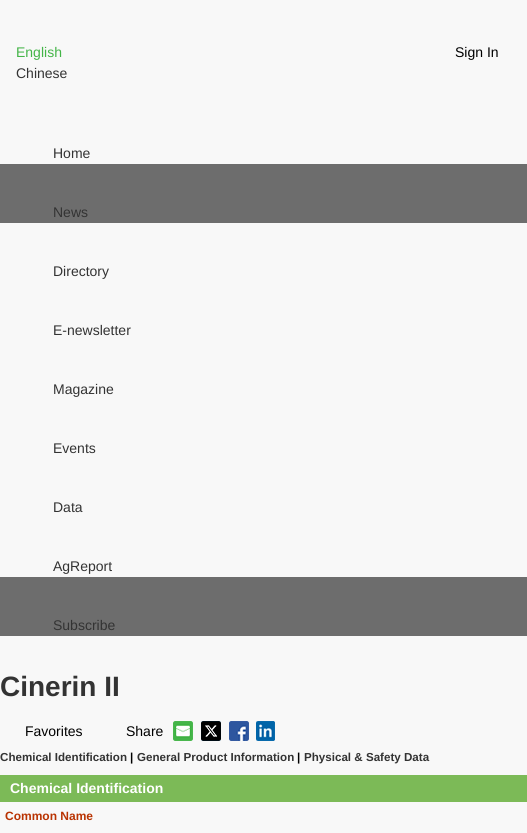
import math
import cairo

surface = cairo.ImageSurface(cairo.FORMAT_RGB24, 527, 833)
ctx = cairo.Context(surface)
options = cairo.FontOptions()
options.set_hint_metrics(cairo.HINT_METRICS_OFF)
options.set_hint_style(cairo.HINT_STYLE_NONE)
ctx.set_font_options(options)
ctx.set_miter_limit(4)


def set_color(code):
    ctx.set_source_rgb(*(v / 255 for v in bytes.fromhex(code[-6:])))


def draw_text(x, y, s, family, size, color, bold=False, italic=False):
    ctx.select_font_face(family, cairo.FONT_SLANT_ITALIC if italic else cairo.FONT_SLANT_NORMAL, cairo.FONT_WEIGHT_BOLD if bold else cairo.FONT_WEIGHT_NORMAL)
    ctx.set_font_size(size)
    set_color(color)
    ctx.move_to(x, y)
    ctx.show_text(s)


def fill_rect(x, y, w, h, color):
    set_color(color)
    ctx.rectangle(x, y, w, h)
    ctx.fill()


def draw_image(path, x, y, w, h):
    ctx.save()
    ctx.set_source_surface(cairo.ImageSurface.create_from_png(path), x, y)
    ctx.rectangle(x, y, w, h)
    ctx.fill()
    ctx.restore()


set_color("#f8f8f8")
ctx.paint()
draw_text(16, 57, "English", "Liberation Sans", 14, "#44b548")
draw_text(16, 78, "Chinese", "Liberation Sans", 14, "#333333")
draw_text(455, 57, "Sign In", "Liberation Sans", 14, "#000000")
draw_text(53, 158, "Home", "Liberation Sans", 14, "#333333")
fill_rect(0, 164, 527, 59, "#6d6d6d")
draw_text(53, 217, "News", "Liberation Sans", 14, "#333333")
draw_text(53, 276, "Directory", "Liberation Sans", 14, "#333333")
draw_text(53, 335, "E-newsletter", "Liberation Sans", 14, "#333333")
draw_text(53, 394, "Magazine", "Liberation Sans", 14, "#333333")
draw_text(53, 453, "Events", "Liberation Sans", 14, "#333333")
draw_text(53, 512, "Data", "Liberation Sans", 14, "#333333")
draw_text(53, 571, "AgReport", "Liberation Sans", 14, "#333333")
fill_rect(0, 577, 527, 59, "#6d6d6d")
draw_text(53, 630, "Subscribe", "Liberation Sans", 14, "#333333")
draw_text(0, 696, "Cinerin II", "Liberation Sans", 28, "#333333", bold=True)
draw_text(25, 736, "Favorites", "Liberation Sans", 14, "#000000")
draw_text(126, 736, "Share", "Liberation Sans", 14, "#000000")
draw_image("assets/img1.png", 173, 721, 20, 20)
draw_image("assets/img2.png", 201, 721, 20, 20)
draw_image("assets/img3.png", 229, 721, 20, 20)
draw_image("assets/img4.png", 256, 721, 19, 20)
draw_text(0, 761, "Chemical Identification", "Liberation Sans", 11.6, "#333333", bold=True)
draw_text(130, 761, "|", "Liberation Sans", 11.6, "#000000", bold=True)
draw_text(137, 761, "General Product Information", "Liberation Sans", 11.6, "#333333", bold=True)
draw_text(297, 761, "|", "Liberation Sans", 11.6, "#000000", bold=True)
draw_text(304, 761, "Physical & Safety Data", "Liberation Sans", 11.6, "#333333", bold=True)
fill_rect(0, 775, 527, 27, "#7cba57")
draw_text(10, 793, "Chemical Identification", "Liberation Sans", 14, "#ffffff", bold=True)
draw_text(5, 820, "Common Name", "Liberation Sans", 12, "#b93302", bold=True)
surface.write_to_png("output.png")
